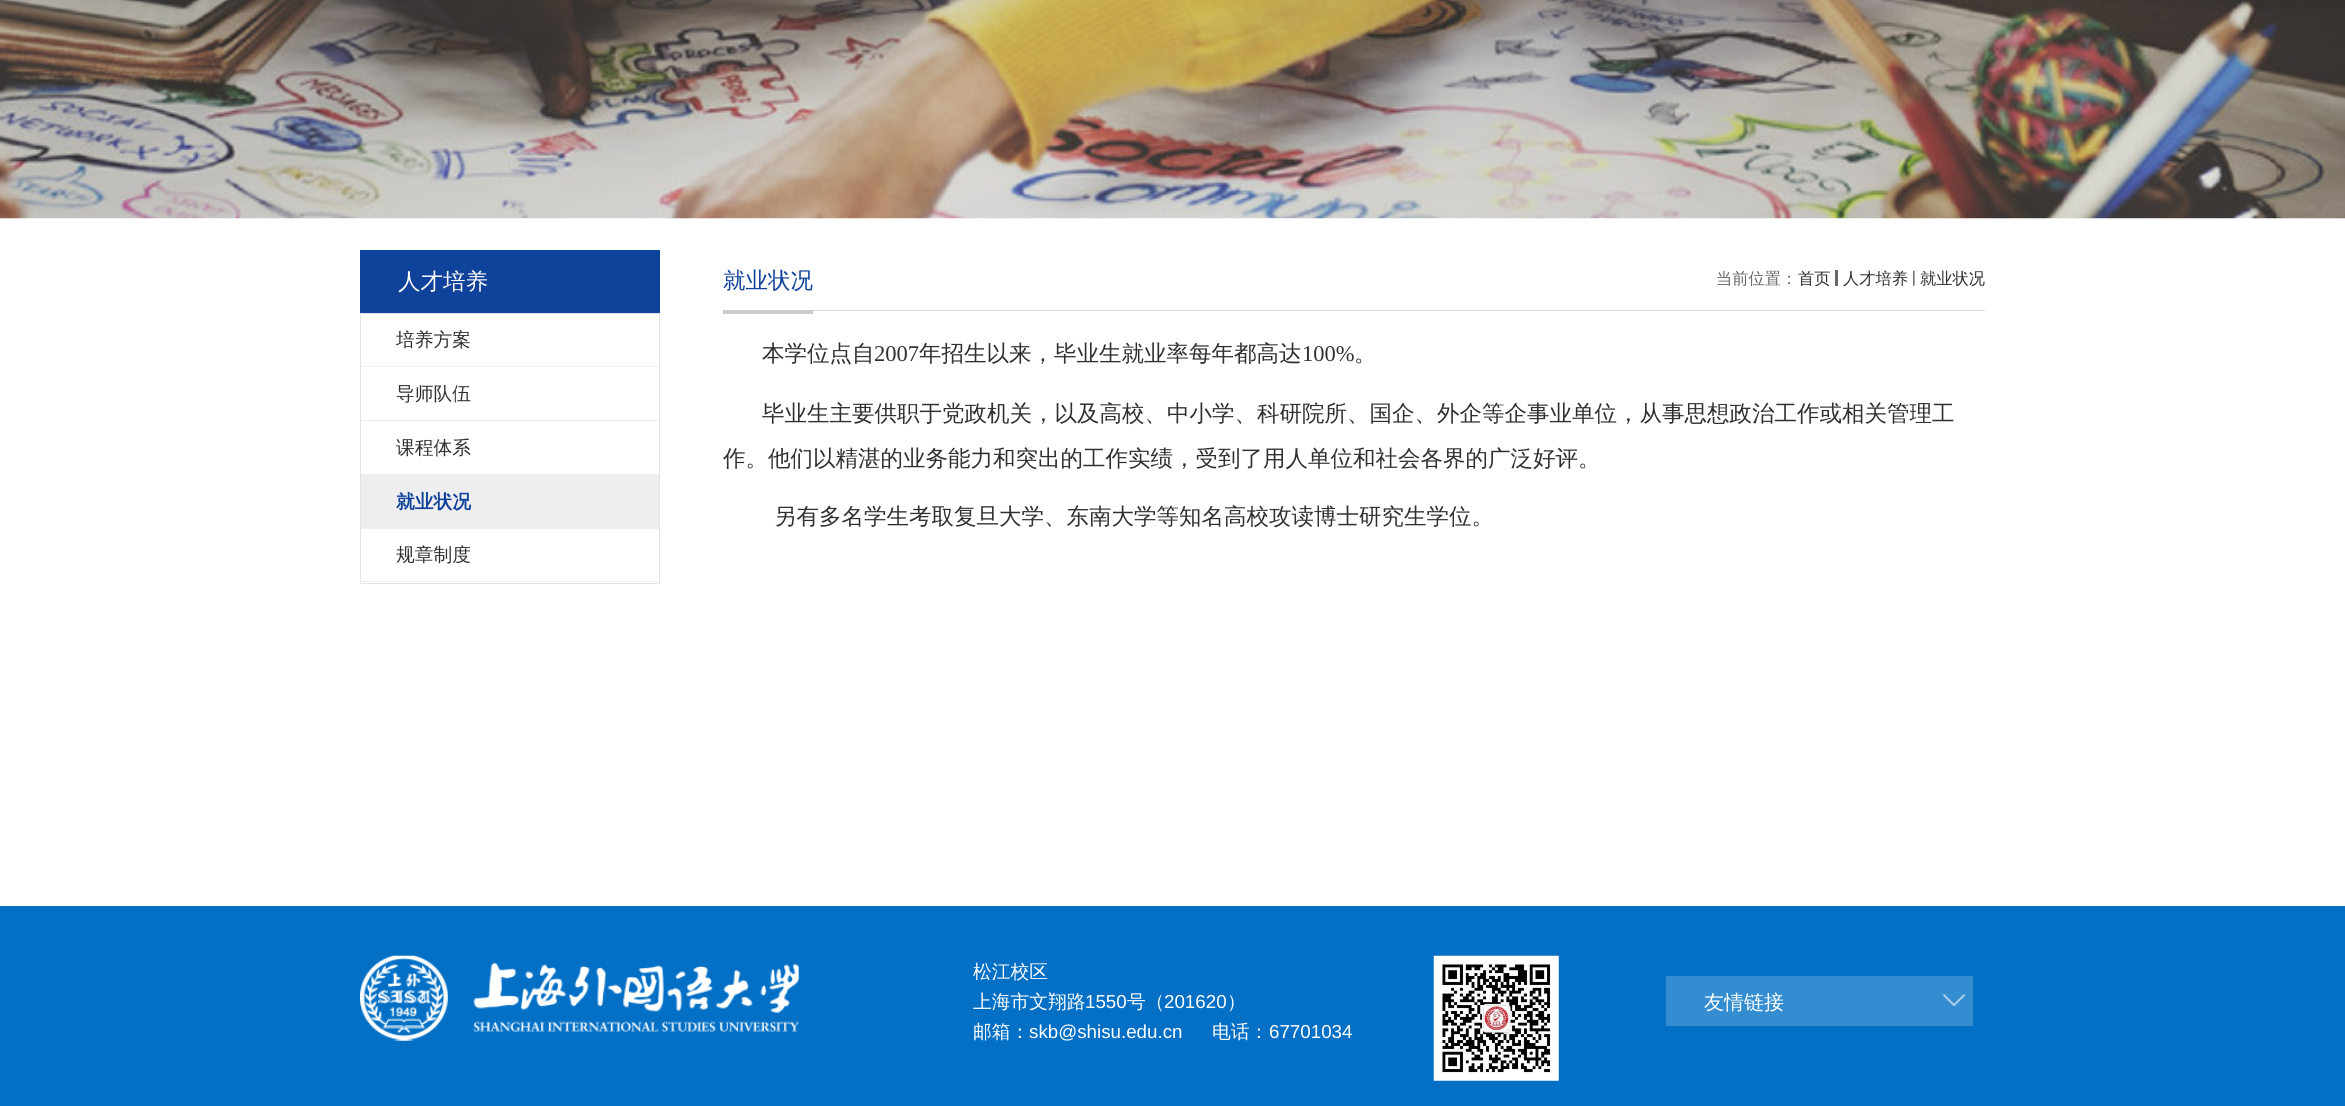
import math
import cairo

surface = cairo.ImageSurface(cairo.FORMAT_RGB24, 2345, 1106)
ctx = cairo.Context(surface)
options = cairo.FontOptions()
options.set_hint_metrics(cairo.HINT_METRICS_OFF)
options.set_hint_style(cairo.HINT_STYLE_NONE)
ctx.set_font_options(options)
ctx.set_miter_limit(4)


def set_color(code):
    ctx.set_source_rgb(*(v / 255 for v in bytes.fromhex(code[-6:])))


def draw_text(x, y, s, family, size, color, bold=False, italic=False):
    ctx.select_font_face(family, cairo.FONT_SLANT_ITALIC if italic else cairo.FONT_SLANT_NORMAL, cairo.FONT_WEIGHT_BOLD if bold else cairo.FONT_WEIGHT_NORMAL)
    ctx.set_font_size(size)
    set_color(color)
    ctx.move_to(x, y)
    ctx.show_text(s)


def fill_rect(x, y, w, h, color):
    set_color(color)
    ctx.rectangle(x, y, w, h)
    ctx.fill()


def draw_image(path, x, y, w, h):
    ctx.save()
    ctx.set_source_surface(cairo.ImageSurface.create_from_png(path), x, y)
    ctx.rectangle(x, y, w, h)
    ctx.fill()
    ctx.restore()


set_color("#ffffff")
ctx.paint()
draw_image("assets/img1.png", 0, 0, 2345, 219)
fill_rect(360, 250, 300, 63, "#0f429b")
draw_text(398, 289, "人才培养", "WenQuanYi Zen Hei Medium", 22.5, "#ffffff")
ctx.rectangle(360.5, 313.5, 299, 270)
set_color("#e4e4e4")
ctx.set_line_width(1)
ctx.stroke()
fill_rect(361, 366, 298, 1, "#f6eaea")
draw_text(396, 346, "培养方案", "WenQuanYi Zen Hei Medium", 18.75, "#2f2f2f")
fill_rect(361, 420, 298, 1, "#f6eaea")
draw_text(396, 400, "导师队伍", "WenQuanYi Zen Hei Medium", 18.75, "#2f2f2f")
fill_rect(361, 474, 298, 1, "#f6eaea")
draw_text(396, 454, "课程体系", "WenQuanYi Zen Hei Medium", 18.75, "#2f2f2f")
fill_rect(361, 475, 298, 53, "#eeeeee")
fill_rect(361, 528, 298, 1, "#f6eaea")
draw_text(396, 508, "就业状况", "WenQuanYi Zen Hei", 18.75, "#0f429b", bold=True)
fill_rect(361, 581, 298, 1, "#f6eaea")
draw_text(396, 561, "规章制度", "WenQuanYi Zen Hei Medium", 18.75, "#2f2f2f")
fill_rect(813, 310, 1172, 1, "#dbdbdb")
fill_rect(723, 310, 90, 4, "#cbcbcb")
draw_text(723, 288, "就业状况", "WenQuanYi Zen Hei Medium", 22.5, "#0f429b")
draw_text(1716, 284, "当前位置：", "WenQuanYi Zen Hei Medium", 16.25, "#666666")
draw_text(1798, 284, "首页", "WenQuanYi Zen Hei Medium", 16.25, "#2f2f2f")
fill_rect(1835, 270, 3, 16, "#686868")
draw_text(1843, 284, "人才培养", "WenQuanYi Zen Hei Medium", 16.25, "#2f2f2f")
draw_image("assets/img2.png", 1913, 270, 2, 16)
draw_text(1920, 284, "就业状况", "WenQuanYi Zen Hei Medium", 16.25, "#2f2f2f")
draw_text(762, 361, "本学位点自", "WenQuanYi Zen Hei Medium", 22.5, "#2f2f2f")
draw_text(874, 361, "2007", "Liberation Serif", 22.5, "#2f2f2f")
draw_text(919, 361, "年招生以来，毕业生就业率每年都高达", "WenQuanYi Zen Hei Medium", 22.5, "#2f2f2f")
draw_text(1302, 361, "100%", "Liberation Serif", 22.5, "#2f2f2f")
draw_text(1354, 361, "。", "WenQuanYi Zen Hei Medium", 22.5, "#2f2f2f")
draw_text(762, 421, "毕业生主要供职于党政机关，以及高校、中小学、科研院所、国企、外企等企事业单位，从事思想政治工作或相关管理工", "WenQuanYi Zen Hei Medium", 22.5, "#2f2f2f")
draw_text(723, 466, "作。他们以精湛的业务能力和突出的工作实绩，受到了用人单位和社会各界的广泛好评。", "WenQuanYi Zen Hei Medium", 22.5, "#2f2f2f")
draw_text(774, 524, "另有多名学生考取复旦大学、东南大学等知名高校攻读博士研究生学位。", "WenQuanYi Zen Hei Medium", 22.5, "#2f2f2f")
fill_rect(0, 906, 2345, 200, "#0370c6")
draw_image("assets/img3.png", 360, 955, 439, 86)
draw_text(973, 978, "松江校区", "WenQuanYi Zen Hei Medium", 18.75, "#ffffff")
draw_text(973, 1008, "上海市文翔路", "WenQuanYi Zen Hei Medium", 18.75, "#ffffff")
draw_text(1085, 1008, "1550", "Liberation Sans", 18.75, "#ffffff")
draw_text(1127, 1008, "号（", "WenQuanYi Zen Hei Medium", 18.75, "#ffffff")
draw_text(1164, 1008, "201620", "Liberation Sans", 18.75, "#ffffff")
draw_text(1227, 1008, "）", "WenQuanYi Zen Hei Medium", 18.75, "#ffffff")
draw_text(973, 1038, "邮箱：", "WenQuanYi Zen Hei Medium", 18.75, "#ffffff")
draw_text(1029, 1038, "skb@shisu.edu.cn", "Liberation Sans", 18.75, "#ffffff")
draw_text(1212, 1038, "电话：", "WenQuanYi Zen Hei Medium", 18.75, "#ffffff")
draw_text(1269, 1038, "67701034", "Liberation Sans", 18.75, "#ffffff")
draw_image("assets/img4.png", 1433, 955, 126, 126)
fill_rect(1666, 976, 307, 50, "#358dd1")
draw_image("assets/img5.png", 1942, 993, 24, 13)
draw_text(1704, 1009, "友情链接", "WenQuanYi Zen Hei Medium", 20, "#ffffff")
surface.write_to_png("output.png")
